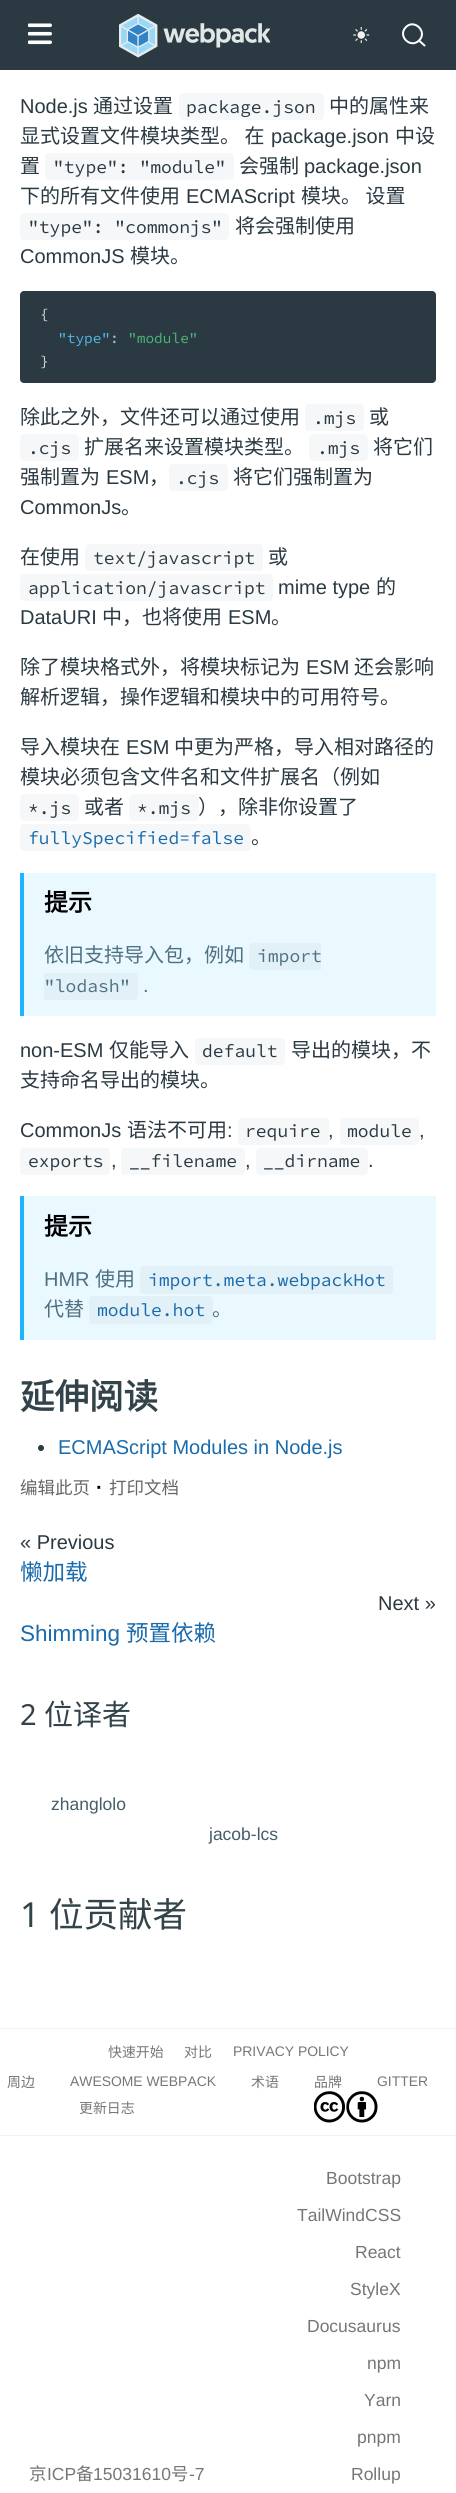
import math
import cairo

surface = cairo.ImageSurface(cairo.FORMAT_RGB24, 456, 2493)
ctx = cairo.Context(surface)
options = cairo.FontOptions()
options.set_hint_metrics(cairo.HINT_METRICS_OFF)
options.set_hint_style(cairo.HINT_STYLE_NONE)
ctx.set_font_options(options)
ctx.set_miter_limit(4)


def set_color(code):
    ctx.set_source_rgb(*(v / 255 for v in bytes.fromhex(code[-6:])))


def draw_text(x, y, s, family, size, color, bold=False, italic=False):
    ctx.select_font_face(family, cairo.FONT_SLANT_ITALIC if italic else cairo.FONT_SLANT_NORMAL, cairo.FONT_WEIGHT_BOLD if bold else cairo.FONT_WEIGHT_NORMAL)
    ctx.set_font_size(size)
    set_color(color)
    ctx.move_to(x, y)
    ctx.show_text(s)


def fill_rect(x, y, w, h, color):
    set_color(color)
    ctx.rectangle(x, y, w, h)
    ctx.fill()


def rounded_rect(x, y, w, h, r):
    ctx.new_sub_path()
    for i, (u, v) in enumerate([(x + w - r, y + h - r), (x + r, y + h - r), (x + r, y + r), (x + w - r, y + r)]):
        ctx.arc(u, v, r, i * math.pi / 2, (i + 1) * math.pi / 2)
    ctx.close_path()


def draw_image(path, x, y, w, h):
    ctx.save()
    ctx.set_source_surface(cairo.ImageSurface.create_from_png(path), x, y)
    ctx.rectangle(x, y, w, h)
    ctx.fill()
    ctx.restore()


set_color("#ffffff")
ctx.paint()
fill_rect(0, 0, 456, 70, "#2b3a42")
draw_image("assets/img1.png", 28, 23, 24, 22)
draw_image("assets/img2.png", 119, 14, 151, 44)
draw_image("assets/img3.png", 353, 26, 17, 18)
ctx.new_path()
ctx.move_to(419, 40.5)
ctx.line_to(424.5, 45.5)
ctx.line_to(419, 40.5)
ctx.curve_to(410.5, 49, 397, 36, 406, 27)
ctx.curve_to(414.5, 18.5, 428, 32, 419, 40.5)
ctx.close_path()
set_color("#ffffff")
ctx.set_line_cap(cairo.LINE_CAP_ROUND)
ctx.set_line_join(cairo.LINE_JOIN_ROUND)
ctx.stroke()
draw_text(20, 113, "Node.js", "Liberation Sans", 20, "#2b3a42")
draw_text(93, 113, "通过设置", "Noto Sans CJK SC", 20, "#2b3a42")
set_color("#f6f7f8")
rounded_rect(179, 93, 145, 27, 4)
ctx.fill()
draw_text(186, 113, "package.json", "Source Code Pro", 18, "#2b3a42")
draw_text(329, 113, "中的属性来", "Noto Sans CJK SC", 20, "#2b3a42")
draw_text(20, 143, "显式设置文件模块类型。 在", "Noto Sans CJK SC", 20, "#2b3a42")
draw_text(271, 143, "package.json", "Liberation Sans", 20, "#2b3a42")
draw_text(395, 143, "中设", "Noto Sans CJK SC", 20, "#2b3a42")
draw_text(20, 173, "置", "Noto Sans CJK SC", 20, "#2b3a42")
set_color("#f6f7f8")
rounded_rect(45, 153, 189, 27, 4)
ctx.fill()
draw_text(53, 173, "\"type\": \"module\"", "Source Code Pro", 18, "#2b3a42")
draw_text(239, 173, "会强制", "Noto Sans CJK SC", 20, "#2b3a42")
draw_text(304, 173, "package.json", "Liberation Sans", 20, "#2b3a42")
draw_text(20, 203, "下的所有文件使用", "Noto Sans CJK SC", 20, "#2b3a42")
draw_text(186, 203, "ECMAScript", "Liberation Sans", 20, "#2b3a42")
draw_text(301, 203, "模块。 设置", "Noto Sans CJK SC", 20, "#2b3a42")
set_color("#f6f7f8")
rounded_rect(20, 213, 209, 27, 4)
ctx.fill()
draw_text(28, 233, "\"type\": \"commonjs\"", "Source Code Pro", 18, "#2b3a42")
draw_text(235, 233, "将会强制使用", "Noto Sans CJK SC", 20, "#2b3a42")
draw_text(20, 263, "CommonJS", "Liberation Sans", 20, "#2b3a42")
draw_text(130, 263, "模块。", "Noto Sans CJK SC", 20, "#2b3a42")
rounded_rect(20, 291, 416, 92, 4)
ctx.fill()
draw_text(40, 319, "{", "Source Code Pro", 14.5, "#e1e6e9")
draw_text(58, 343, "\"type\"", "Source Code Pro", 14.5, "#53b7e6")
draw_text(110, 343, ":", "Source Code Pro", 14.5, "#a9becc")
draw_text(128, 343, "\"module\"", "Source Code Pro", 14.5, "#4ab576")
draw_text(40, 366, "}", "Source Code Pro", 14.5, "#e1e6e9")
draw_text(20, 424, "除此之外，文件还可以通过使用", "Noto Sans CJK SC", 20, "#2b3a42")
set_color("#f6f7f8")
rounded_rect(305, 404, 59, 27, 4)
ctx.fill()
draw_text(313, 424, ".mjs", "Source Code Pro", 18, "#2b3a42")
draw_text(369, 424, "或", "Noto Sans CJK SC", 20, "#2b3a42")
set_color("#f6f7f8")
rounded_rect(20, 434, 59, 27, 4)
ctx.fill()
draw_text(28, 454, ".cjs", "Source Code Pro", 18, "#2b3a42")
draw_text(84, 454, "扩展名来设置模块类型。", "Noto Sans CJK SC", 20, "#2b3a42")
set_color("#f6f7f8")
rounded_rect(309, 434, 59, 27, 4)
ctx.fill()
draw_text(317, 454, ".mjs", "Source Code Pro", 18, "#2b3a42")
draw_text(373, 454, "将它们", "Noto Sans CJK SC", 20, "#2b3a42")
draw_text(20, 484, "强制置为", "Noto Sans CJK SC", 20, "#2b3a42")
draw_text(106, 484, "ESM", "Liberation Sans", 20, "#2b3a42")
draw_text(149, 484, "，", "Noto Sans CJK SC", 20, "#2b3a42")
set_color("#f6f7f8")
rounded_rect(169, 464, 59, 27, 4)
ctx.fill()
draw_text(176, 484, ".cjs", "Source Code Pro", 18, "#2b3a42")
draw_text(233, 484, "将它们强制置为", "Noto Sans CJK SC", 20, "#2b3a42")
draw_text(20, 514, "CommonJs", "Liberation Sans", 20, "#2b3a42")
draw_text(121, 514, "。", "Noto Sans CJK SC", 20, "#2b3a42")
draw_text(20, 564, "在使用", "Noto Sans CJK SC", 20, "#2b3a42")
set_color("#f6f7f8")
rounded_rect(85, 544, 178, 27, 4)
ctx.fill()
draw_text(93, 564, "text/javascript", "Source Code Pro", 18, "#2b3a42")
draw_text(268, 564, "或", "Noto Sans CJK SC", 20, "#2b3a42")
set_color("#f6f7f8")
rounded_rect(20, 574, 253, 27, 4)
ctx.fill()
draw_text(28, 594, "application/javascript", "Source Code Pro", 18, "#2b3a42")
draw_text(278, 594, "mime type", "Liberation Sans", 20, "#2b3a42")
draw_text(376, 594, "的", "Noto Sans CJK SC", 20, "#2b3a42")
draw_text(20, 624, "DataURI", "Liberation Sans", 20, "#2b3a42")
draw_text(102, 624, "中，也将使用", "Noto Sans CJK SC", 20, "#2b3a42")
draw_text(228, 624, "ESM", "Liberation Sans", 20, "#2b3a42")
draw_text(271, 624, "。", "Noto Sans CJK SC", 20, "#2b3a42")
draw_text(20, 674, "除了模块格式外，将模块标记为", "Noto Sans CJK SC", 20, "#2b3a42")
draw_text(306, 674, "ESM", "Liberation Sans", 20, "#2b3a42")
draw_text(354, 674, "还会影响", "Noto Sans CJK SC", 20, "#2b3a42")
draw_text(20, 704, "解析逻辑，操作逻辑和模块中的可用符号。", "Noto Sans CJK SC", 20, "#2b3a42")
draw_text(20, 754, "导入模块在", "Noto Sans CJK SC", 20, "#2b3a42")
draw_text(126, 754, "ESM", "Liberation Sans", 20, "#2b3a42")
draw_text(174, 754, "中更为严格，导入相对路径的", "Noto Sans CJK SC", 20, "#2b3a42")
draw_text(20, 784, "模块必须包含文件名和文件扩展名（例如", "Noto Sans CJK SC", 20, "#2b3a42")
set_color("#f6f7f8")
rounded_rect(20, 794, 59, 27, 4)
ctx.fill()
draw_text(28, 814, "*.js", "Source Code Pro", 18, "#2b3a42")
draw_text(84, 814, "或者", "Noto Sans CJK SC", 20, "#2b3a42")
set_color("#f6f7f8")
rounded_rect(129, 794, 70, 27, 4)
ctx.fill()
draw_text(137, 814, "*.mjs", "Source Code Pro", 18, "#2b3a42")
draw_text(198, 814, "），除非你设置了", "Noto Sans CJK SC", 20, "#2b3a42")
set_color("#f6f7f8")
rounded_rect(20, 824, 231, 27, 4)
ctx.fill()
draw_text(28, 844, "fullySpecified=false", "Source Code Pro", 18, "#1a6bac")
draw_text(251, 844, "。", "Noto Sans CJK SC", 20, "#2b3a42")
fill_rect(24, 873, 412, 143, "#eaf8ff")
fill_rect(20, 873, 4, 143, "#1eb4ff")
draw_text(44, 911, "提示", "Noto Sans CJK SC", 24, "#000000", bold=True)
draw_text(44, 962, "依旧支持导入包，例如", "Noto Sans CJK SC", 20, "#4e7182")
set_color("#e2f0f8")
ctx.new_path()
ctx.move_to(253, 943)
ctx.line_to(321, 943)
ctx.line_to(321, 970)
ctx.line_to(253, 970)
ctx.curve_to(251, 970, 249, 968, 249, 966)
ctx.line_to(249, 947)
ctx.curve_to(249, 945, 251, 943, 253, 943)
ctx.close_path()
ctx.fill()
draw_text(257, 962, "import", "Source Code Pro", 18, "#4e7182")
set_color("#e2f0f8")
ctx.new_path()
ctx.move_to(44, 973)
ctx.line_to(134, 973)
ctx.curve_to(136, 973, 138, 975, 138, 977)
ctx.line_to(138, 996)
ctx.curve_to(138, 998, 136, 1000, 134, 1000)
ctx.line_to(44, 1000)
ctx.close_path()
ctx.fill()
draw_text(44, 992, "\"lodash\"", "Source Code Pro", 18, "#4e7182")
draw_text(143, 992, ".", "Liberation Sans", 20, "#4e7182")
draw_text(20, 1057, "non-ESM", "Liberation Sans", 20, "#2b3a42")
draw_text(109, 1057, "仅能导入", "Noto Sans CJK SC", 20, "#2b3a42")
set_color("#f6f7f8")
rounded_rect(195, 1038, 90, 27, 4)
ctx.fill()
draw_text(202, 1057, "default", "Source Code Pro", 18, "#2b3a42")
draw_text(291, 1057, "导出的模块，不", "Noto Sans CJK SC", 20, "#2b3a42")
draw_text(20, 1087, "支持命名导出的模块。", "Noto Sans CJK SC", 20, "#2b3a42")
draw_text(20, 1137, "CommonJs", "Liberation Sans", 20, "#2b3a42")
draw_text(127, 1137, "语法不可用", "Noto Sans CJK SC", 20, "#2b3a42")
draw_text(227, 1137, ":", "Liberation Sans", 20, "#2b3a42")
set_color("#f6f7f8")
rounded_rect(238, 1118, 91, 27, 4)
ctx.fill()
draw_text(245, 1137, "require", "Source Code Pro", 18, "#2b3a42")
draw_text(328, 1137, ",", "Liberation Sans", 20, "#2b3a42")
set_color("#f6f7f8")
rounded_rect(340, 1118, 79, 27, 4)
ctx.fill()
draw_text(347, 1137, "module", "Source Code Pro", 18, "#2b3a42")
draw_text(419, 1137, ",", "Liberation Sans", 20, "#2b3a42")
set_color("#f6f7f8")
rounded_rect(20, 1148, 90, 27, 4)
ctx.fill()
draw_text(28, 1167, "exports", "Source Code Pro", 18, "#2b3a42")
draw_text(111, 1167, ",", "Liberation Sans", 20, "#2b3a42")
set_color("#f6f7f8")
rounded_rect(121, 1148, 124, 27, 4)
ctx.fill()
draw_text(129, 1167, "__filename", "Source Code Pro", 18, "#2b3a42")
draw_text(245, 1167, ",", "Liberation Sans", 20, "#2b3a42")
set_color("#f6f7f8")
rounded_rect(256, 1148, 112, 27, 4)
ctx.fill()
draw_text(263, 1167, "__dirname", "Source Code Pro", 18, "#2b3a42")
draw_text(368, 1167, ".", "Liberation Sans", 20, "#2b3a42")
fill_rect(24, 1196, 412, 144, "#eaf8ff")
fill_rect(20, 1196, 4, 144, "#1eb4ff")
draw_text(44, 1235, "提示", "Noto Sans CJK SC", 24, "#000000", bold=True)
draw_text(44, 1286, "HMR", "Liberation Sans", 20, "#4e7182")
draw_text(95, 1286, "使用", "Noto Sans CJK SC", 20, "#4e7182")
set_color("#e2f0f8")
rounded_rect(140, 1266, 253, 28, 4)
ctx.fill()
draw_text(148, 1286, "import.meta.webpackHot", "Source Code Pro", 18, "#1a6bac")
draw_text(44, 1316, "代替", "Noto Sans CJK SC", 20, "#4e7182")
set_color("#e2f0f8")
rounded_rect(89, 1296, 124, 28, 4)
ctx.fill()
draw_text(97, 1316, "module.hot", "Source Code Pro", 18, "#1a6bac")
draw_text(212, 1316, "。", "Noto Sans CJK SC", 20, "#4e7182")
draw_text(20, 1409, "延伸阅读", "Noto Sans CJK SC", 34.5, "#32434a", bold=True)
set_color("#2b3a42")
ctx.new_path()
ctx.arc(41, 1448, 3, 0, 2 * math.pi)
ctx.fill()
draw_text(58, 1454, "ECMAScript Modules in Node.js", "Liberation Sans", 20, "#1a6bac")
draw_text(20, 1494, "编辑此页", "Noto Sans CJK SC", 17.5, "#666666")
draw_text(96, 1494, "·", "Liberation Sans", 20, "#000000", bold=True)
draw_text(109, 1494, "打印文档", "Noto Sans CJK SC", 17.5, "#666666")
draw_text(20, 1549, "« Previous", "Liberation Sans", 20, "#2b3a42")
draw_text(20, 1580, "懒加载", "Noto Sans CJK SC", 22.5, "#1a6bac")
draw_text(378, 1610, "Next »", "Liberation Sans", 20, "#2b3a42")
draw_text(20, 1641, "Shimming", "Liberation Sans", 22.5, "#1a6bac")
draw_text(126, 1641, "预置依赖", "Noto Sans CJK SC", 22.5, "#1a6bac")
draw_text(20, 1725, "2", "Noto Sans", 29, "#32434a")
draw_text(44, 1725, "位译者", "Noto Sans CJK SC", 29, "#32434a")
draw_text(51, 1810, "zhanglolo", "Liberation Sans", 17.5, "#465e69")
draw_text(209, 1840, "jacob-lcs", "Liberation Sans", 17.5, "#465e69")
draw_text(20, 1927, "1", "Noto Sans", 34.5, "#32434a")
draw_text(49, 1927, "位贡献者", "Noto Sans CJK SC", 34.5, "#32434a")
fill_rect(0, 2028, 456, 1, "#f2f2f2")
draw_text(108, 2057, "快速开始", "Noto Sans CJK SC", 13.9, "#777676")
draw_text(184, 2057, "对比", "Noto Sans CJK SC", 13.9, "#777676")
draw_text(233, 2056, "PRIVACY POLICY", "Liberation Sans", 13.9, "#777676")
draw_text(7, 2087, "周边", "Noto Sans CJK SC", 13.9, "#777676")
draw_text(70, 2086, "AWESOME WEBPACK", "Liberation Sans", 13.9, "#777676")
draw_text(251, 2087, "术语", "Noto Sans CJK SC", 13.9, "#777676")
draw_text(314, 2087, "品牌", "Noto Sans CJK SC", 13.9, "#777676")
draw_text(377, 2086, "GITTER", "Liberation Sans", 13.9, "#777676")
draw_text(79, 2113, "更新日志", "Noto Sans CJK SC", 13.9, "#777676")
draw_image("assets/img4.png", 314, 2091, 31, 32)
draw_image("assets/img5.png", 346, 2091, 32, 32)
fill_rect(0, 2135, 456, 1, "#f2f2f2")
draw_text(29, 2480, "京", "Noto Sans CJK SC", 17.5, "#777676")
draw_text(47, 2480, "ICP", "Liberation Sans", 17.5, "#777676")
draw_text(76, 2480, "备", "Noto Sans CJK SC", 17.5, "#777676")
draw_text(93, 2480, "15031610", "Liberation Sans", 17.5, "#777676")
draw_text(171, 2480, "号", "Noto Sans CJK SC", 17.5, "#777676")
draw_text(189, 2480, "-7", "Liberation Sans", 17.5, "#777676")
draw_text(326, 2184, "Bootstrap", "Liberation Sans", 17.5, "#777676")
draw_text(297, 2221, "TailWindCSS", "Liberation Sans", 17.5, "#777676")
draw_text(355, 2258, "React", "Liberation Sans", 17.5, "#777676")
draw_text(350, 2295, "StyleX", "Liberation Sans", 17.5, "#777676")
draw_text(307, 2332, "Docusaurus", "Liberation Sans", 17.5, "#777676")
draw_text(367, 2369, "npm", "Liberation Sans", 17.5, "#777676")
draw_text(364, 2406, "Yarn", "Liberation Sans", 17.5, "#777676")
draw_text(357, 2443, "pnpm", "Liberation Sans", 17.5, "#777676")
draw_text(351, 2480, "Rollup", "Liberation Sans", 17.5, "#777676")
surface.write_to_png("output.png")
